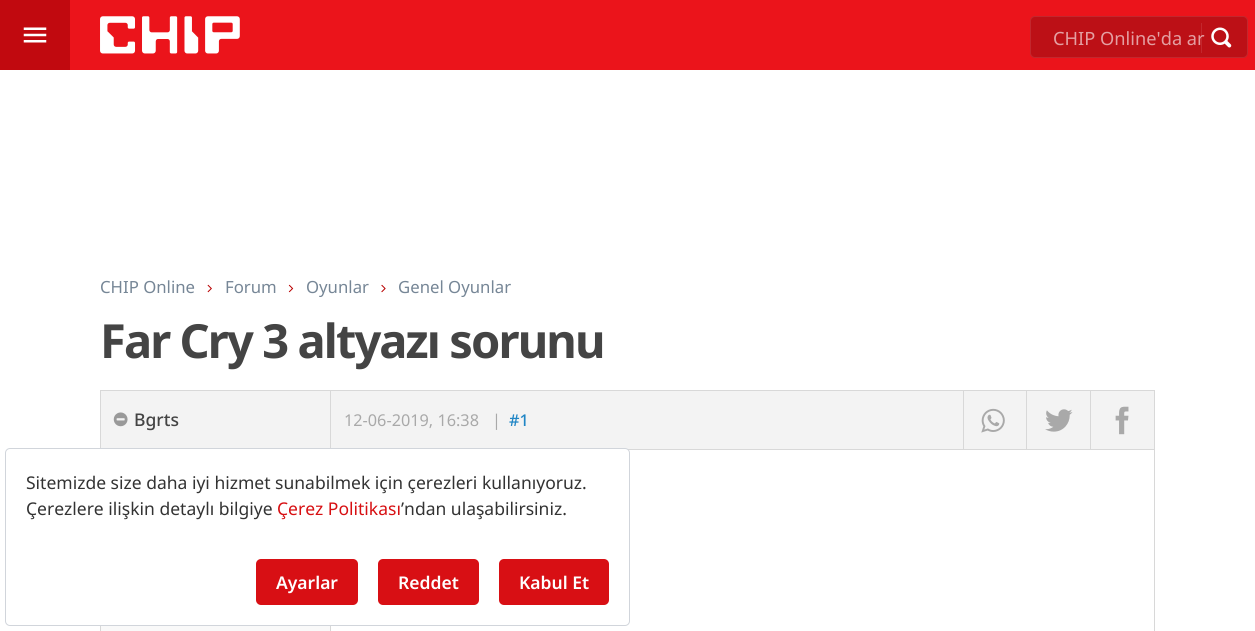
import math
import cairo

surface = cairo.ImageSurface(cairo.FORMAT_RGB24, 1255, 631)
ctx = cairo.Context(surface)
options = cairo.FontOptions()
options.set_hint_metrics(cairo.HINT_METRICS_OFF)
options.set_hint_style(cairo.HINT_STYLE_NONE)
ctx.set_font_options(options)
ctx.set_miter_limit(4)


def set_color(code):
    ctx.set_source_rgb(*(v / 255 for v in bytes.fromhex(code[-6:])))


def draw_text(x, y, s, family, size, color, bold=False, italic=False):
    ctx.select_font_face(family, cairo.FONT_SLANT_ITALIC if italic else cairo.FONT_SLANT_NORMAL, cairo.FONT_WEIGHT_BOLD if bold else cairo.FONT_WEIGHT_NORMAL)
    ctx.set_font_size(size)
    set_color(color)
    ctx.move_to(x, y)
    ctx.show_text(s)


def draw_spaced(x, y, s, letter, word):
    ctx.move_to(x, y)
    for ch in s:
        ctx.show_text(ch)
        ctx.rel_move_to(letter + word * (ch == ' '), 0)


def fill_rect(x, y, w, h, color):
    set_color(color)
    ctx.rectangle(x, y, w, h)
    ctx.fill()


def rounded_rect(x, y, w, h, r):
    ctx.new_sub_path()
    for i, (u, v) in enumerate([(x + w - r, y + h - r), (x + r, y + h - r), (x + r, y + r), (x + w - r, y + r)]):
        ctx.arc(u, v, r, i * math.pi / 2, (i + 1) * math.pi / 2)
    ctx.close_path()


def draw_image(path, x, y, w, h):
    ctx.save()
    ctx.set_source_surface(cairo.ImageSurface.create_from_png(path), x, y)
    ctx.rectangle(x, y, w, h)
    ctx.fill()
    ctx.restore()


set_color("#ffffff")
ctx.paint()
fill_rect(70, 0, 1185, 70, "#eb141b")
fill_rect(0, 0, 70, 70, "#c1090f")
draw_image("assets/img1.png", 23, 27, 24, 16)
draw_image("assets/img2.png", 100, 16, 140, 38)
set_color("#bc1016")
rounded_rect(1030, 16, 218, 42, 5)
ctx.fill()
rounded_rect(1030.5, 16.5, 217, 41, 4.5)
ctx.set_source_rgba(1, 1, 1, 0.1)
ctx.set_line_width(1)
ctx.stroke()
draw_text(1053, 45, "CHIP Online'da ar", "Noto Sans", 18.25, "#e49fa2")
ctx.set_source_rgba(1, 1, 1, 0.1)
ctx.rectangle(1201, 23, 1, 30)
ctx.fill()
draw_image("assets/img3.png", 1211, 27, 21, 21)
draw_text(100, 293, "CHIP Online", "Noto Sans", 16.75, "#768696")
draw_image("assets/img4.png", 207, 284, 5, 9)
draw_text(225, 293, "Forum", "Noto Sans", 16.75, "#768696")
draw_image("assets/img5.png", 288, 284, 6, 9)
draw_text(306, 293, "Oyunlar", "Noto Sans", 16.75, "#768696")
draw_image("assets/img6.png", 381, 284, 5, 9)
draw_text(398, 293, "Genel Oyunlar", "Noto Sans", 16.75, "#768696")
ctx.select_font_face("Noto Sans", cairo.FONT_SLANT_NORMAL, cairo.FONT_WEIGHT_BOLD)
ctx.set_font_size(47)
set_color("#444444")
draw_spaced(100, 358, "Far Cry 3 altyazı sorunu", -1.9, 0)
fill_rect(101, 391, 1053, 58, "#f3f3f3")
fill_rect(100, 390, 1055, 1, "#d8d8d8")
fill_rect(628, 449, 527, 1, "#d8d8d8")
fill_rect(330, 391, 1, 58, "#d8d8d8")
fill_rect(100, 391, 1, 58, "#d8d8d8")
draw_image("assets/img7.png", 113, 412, 15, 15)
draw_text(134, 426, "Bgrts", "Noto Sans Medium", 17.5, "#444444")
fill_rect(1154, 391, 1, 58, "#d8d8d8")
draw_text(344, 426, "12-06-2019, 16:38", "Noto Sans", 16.25, "#a9a9a9")
draw_text(492, 426, "|", "Noto Sans", 16.25, "#a9a9a9")
draw_text(509, 426, "#1", "Noto Sans Medium", 16.25, "#1f85c5")
fill_rect(963, 391, 1, 58, "#d8d8d8")
draw_image("assets/img8.png", 981, 408, 24, 25)
fill_rect(1026, 391, 1, 58, "#d8d8d8")
draw_image("assets/img9.png", 1045, 409, 28, 23)
fill_rect(1090, 391, 1, 58, "#d8d8d8")
draw_image("assets/img10.png", 1115, 406, 14, 29)
fill_rect(101, 626, 229, 5, "#f9f9f9")
fill_rect(100, 626, 1, 5, "#d8d8d8")
fill_rect(1154, 450, 1, 181, "#d8d8d8")
fill_rect(330, 626, 1, 5, "#d8d8d8")
set_color("#ffffff")
rounded_rect(5.5, 448.5, 624, 177, 4.5)
ctx.fill_preserve()
set_color("#d1d5db")
ctx.stroke()
draw_text(26, 489, "Sitemizde size daha iyi hizmet sunabilmek için çerezleri kullanıyoruz.", "Noto Sans", 17.5, "#333333")
draw_text(26, 515, "Çerezlere ilişkin detaylı bilgiye", "Noto Sans", 17.5, "#333333")
draw_text(277, 515, "Çerez Politikası", "Noto Sans", 17.5, "#d70f12")
draw_text(401, 515, "’ndan ulaşabilirsiniz.", "Noto Sans", 17.5, "#333333")
set_color("#d80f14")
rounded_rect(256, 559, 102, 46, 5)
ctx.fill()
draw_text(276, 589, "Ayarlar", "Noto Sans SemiBold", 17.5, "#ffffff")
set_color("#d80f14")
rounded_rect(378, 559, 101, 46, 5)
ctx.fill()
draw_text(398, 589, "Reddet", "Noto Sans SemiBold", 17.5, "#ffffff")
set_color("#d80f14")
rounded_rect(499, 559, 110, 46, 5)
ctx.fill()
draw_text(519, 589, "Kabul Et", "Noto Sans SemiBold", 17.5, "#ffffff")
surface.write_to_png("output.png")
